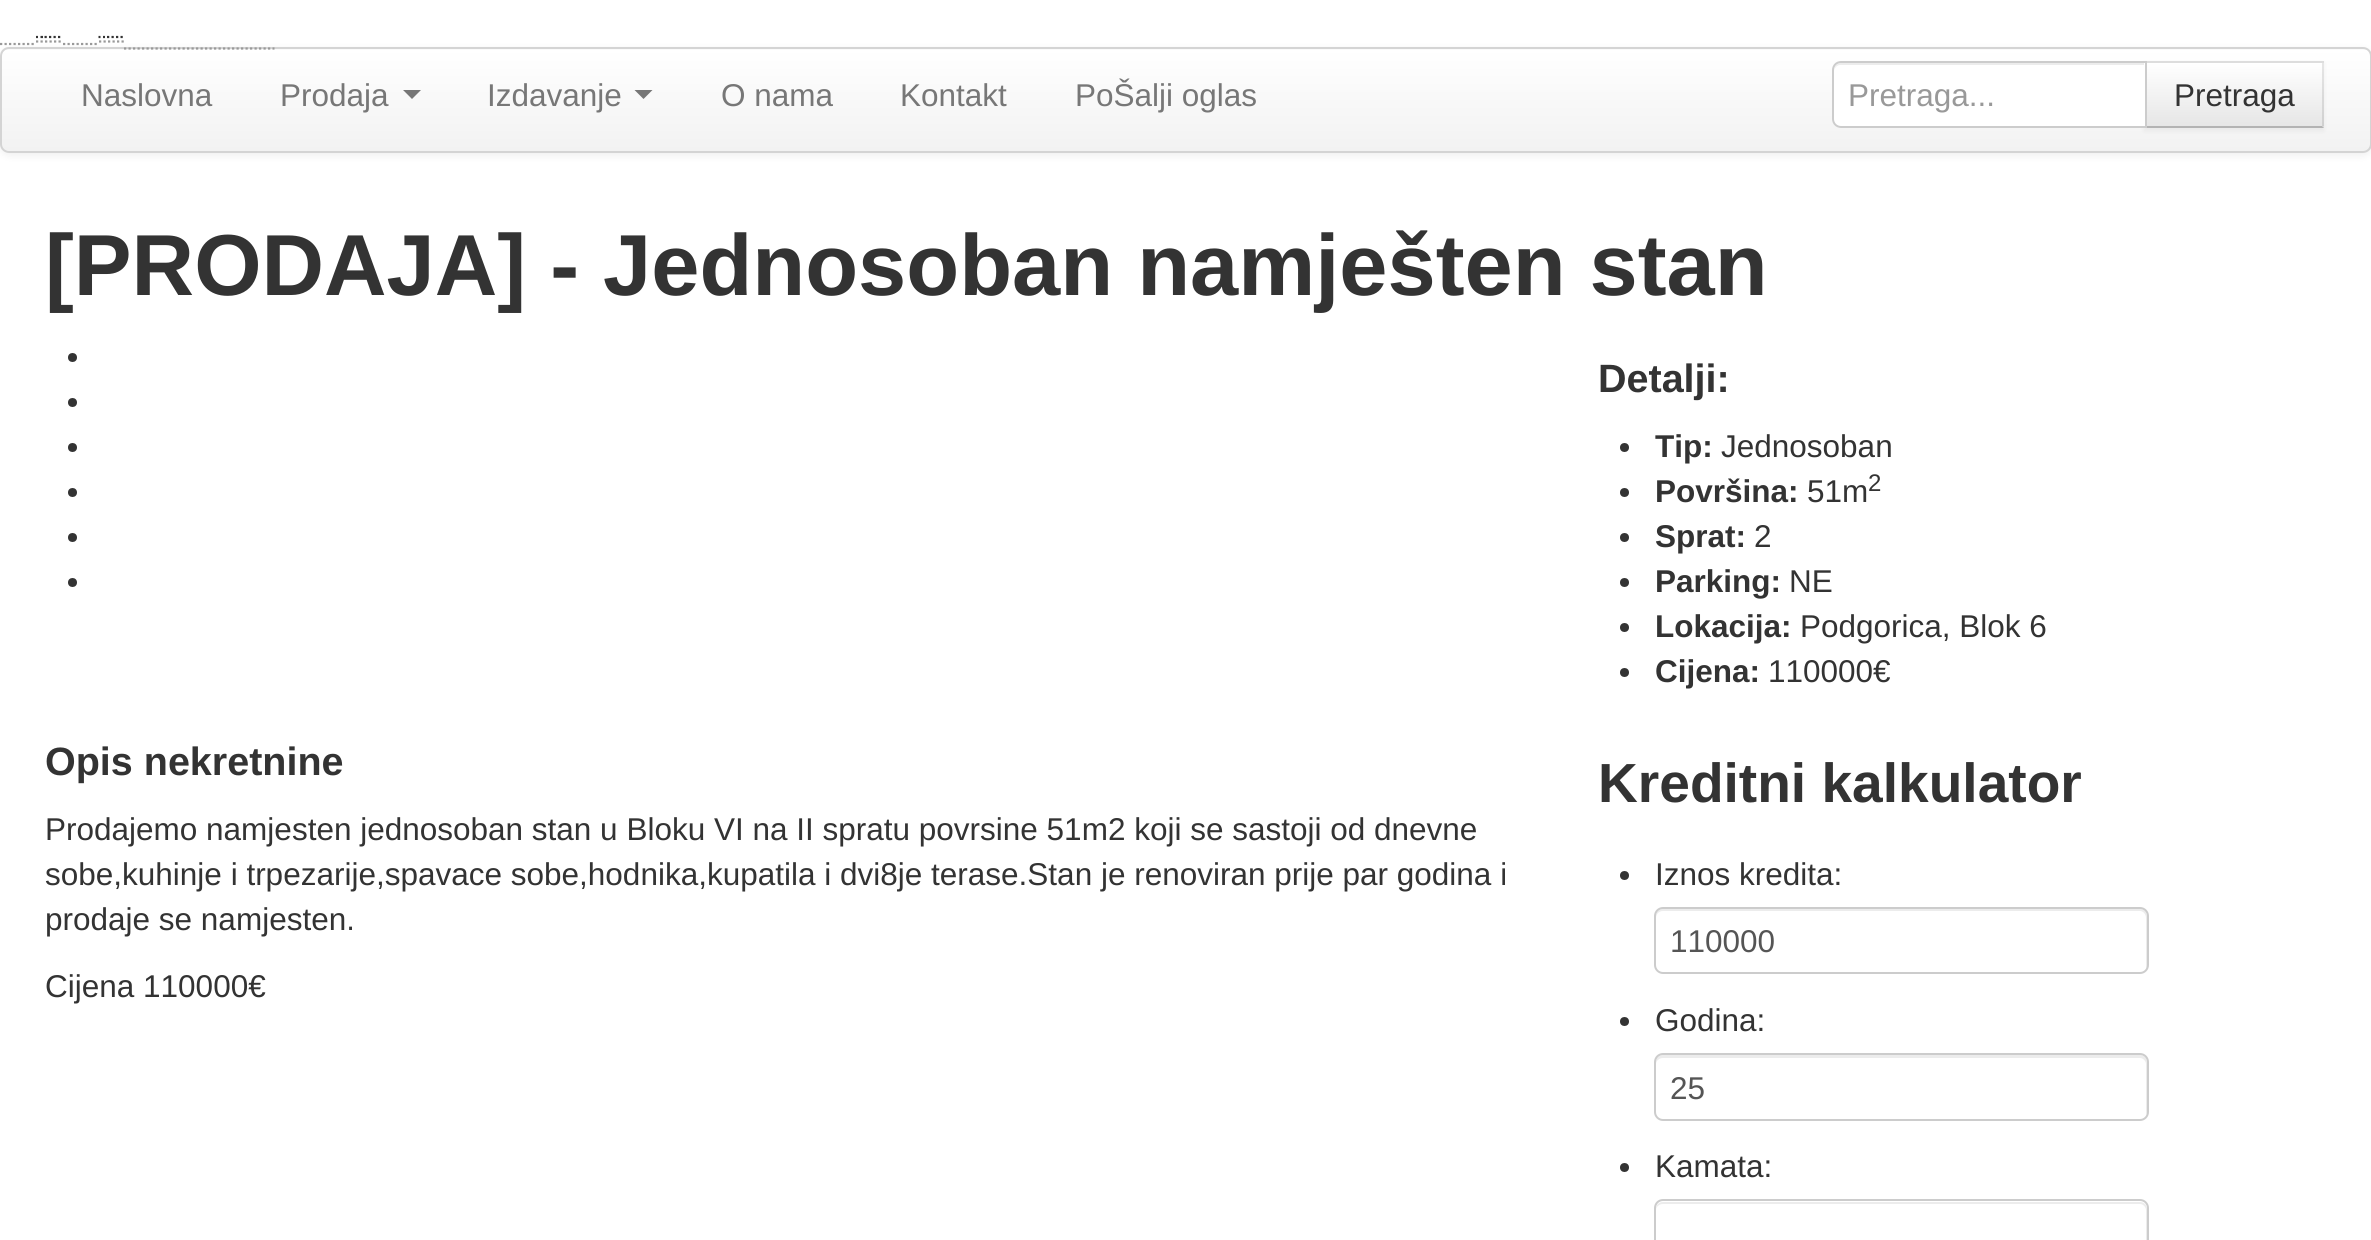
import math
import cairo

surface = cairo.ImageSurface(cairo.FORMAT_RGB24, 2371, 1240)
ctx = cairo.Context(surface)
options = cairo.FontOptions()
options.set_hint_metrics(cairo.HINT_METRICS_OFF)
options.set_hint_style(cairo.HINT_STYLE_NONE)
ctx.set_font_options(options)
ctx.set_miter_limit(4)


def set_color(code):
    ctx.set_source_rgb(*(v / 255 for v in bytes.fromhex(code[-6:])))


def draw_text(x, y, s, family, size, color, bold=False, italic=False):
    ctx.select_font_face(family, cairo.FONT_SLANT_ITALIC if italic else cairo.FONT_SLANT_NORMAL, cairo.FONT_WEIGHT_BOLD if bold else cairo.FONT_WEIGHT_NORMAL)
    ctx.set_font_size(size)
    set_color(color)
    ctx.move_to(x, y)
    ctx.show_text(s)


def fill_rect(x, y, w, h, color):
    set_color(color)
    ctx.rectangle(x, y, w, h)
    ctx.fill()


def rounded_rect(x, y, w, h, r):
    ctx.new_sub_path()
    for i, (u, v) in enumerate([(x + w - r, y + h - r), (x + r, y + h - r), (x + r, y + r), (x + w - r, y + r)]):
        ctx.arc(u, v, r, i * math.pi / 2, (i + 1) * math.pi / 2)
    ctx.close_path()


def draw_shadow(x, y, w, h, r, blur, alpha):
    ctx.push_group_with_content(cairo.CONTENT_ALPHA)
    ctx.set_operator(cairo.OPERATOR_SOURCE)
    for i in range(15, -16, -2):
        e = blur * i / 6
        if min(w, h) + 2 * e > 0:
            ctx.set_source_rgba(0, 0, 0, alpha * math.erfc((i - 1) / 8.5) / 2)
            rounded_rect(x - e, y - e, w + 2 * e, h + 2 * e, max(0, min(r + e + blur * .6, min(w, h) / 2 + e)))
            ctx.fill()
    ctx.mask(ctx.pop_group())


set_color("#ffffff")
ctx.paint()
set_color("#000000")
draw_shadow(0, 50, 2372, 105, 9, 4.5, 0.07)
ctx.new_path()
ctx.move_to(36, 37)
ctx.line_to(38, 37)
ctx.move_to(40.5, 37)
ctx.line_to(43, 37)
set_color("#333333")
ctx.set_line_width(2.2)
ctx.stroke()
ctx.new_path()
ctx.move_to(44.5, 37)
ctx.line_to(62.5, 37)
ctx.set_dash([2.25, 2.25])
ctx.stroke()
ctx.new_path()
ctx.move_to(98.5, 37)
ctx.line_to(100.5, 37)
ctx.move_to(103, 37)
ctx.line_to(105, 37)
ctx.set_dash([])
ctx.stroke()
ctx.new_path()
ctx.move_to(107, 37)
ctx.line_to(124.5, 37)
ctx.set_dash([2.25, 2.25])
ctx.stroke()
ctx.new_path()
ctx.move_to(0, 44)
ctx.line_to(36, 44)
ctx.move_to(36, 41.5)
ctx.line_to(63, 41.5)
set_color("#999999")
ctx.stroke()
ctx.new_path()
ctx.move_to(63, 44)
ctx.line_to(99, 44)
ctx.move_to(99, 41.5)
ctx.line_to(124, 41.5)
ctx.stroke()
set_color("#fafafa")
rounded_rect(0, 47, 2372, 106, 9)
ctx.fill()
ctx.save()
rounded_rect(0, 47, 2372, 106, 9)
ctx.clip()
gradient = cairo.LinearGradient(1186, 49, 1186, 151)
gradient.add_color_stop_rgba(0, 1, 1, 1, 1)
gradient.add_color_stop_rgba(1, 0.949, 0.949, 0.949, 1)
ctx.set_source(gradient)
ctx.rectangle(0, 50, 2371, 101)
ctx.fill()
ctx.restore()
rounded_rect(1, 48, 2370, 104, 8)
set_color("#d4d4d4")
ctx.set_line_width(2)
ctx.set_dash([])
ctx.stroke()
ctx.new_path()
ctx.move_to(124, 48.5)
ctx.line_to(274.5, 48.5)
set_color("#999999")
ctx.set_line_width(2.2)
ctx.set_dash([2.25, 2.25])
ctx.stroke()
draw_text(81, 106, "Naslovna", "Liberation Sans", 31.5, "#777777")
draw_text(280, 106, "Prodaja", "Liberation Sans", 31.5, "#777777")
ctx.new_path()
ctx.move_to(403, 90)
ctx.line_to(421, 90)
ctx.line_to(412, 99)
ctx.close_path()
ctx.fill()
draw_text(487, 106, "Izdavanje", "Liberation Sans", 31.5, "#777777")
ctx.new_path()
ctx.move_to(634.5, 90)
ctx.line_to(652.5, 90)
ctx.line_to(643.5, 99)
ctx.close_path()
ctx.fill()
draw_text(721, 106, "O nama", "Liberation Sans", 31.5, "#777777")
draw_text(900, 106, "Kontakt", "Liberation Sans", 31.5, "#777777")
draw_text(1075, 106, "PoŠalji oglas", "Liberation Sans", 31.5, "#777777")
set_color("#000000")
draw_shadow(2144, 63, 180, 68, 0, 2, 0.05)
fill_rect(2322, 61, 2, 67, "#f5f5f5")
set_color("#dddddd")
ctx.new_path()
ctx.move_to(2144, 61)
ctx.line_to(2324, 61)
ctx.line_to(2322, 63)
ctx.line_to(2146, 63)
ctx.close_path()
ctx.fill()
gradient = cairo.LinearGradient(2234, 63, 2234, 126)
gradient.add_color_stop_rgba(0, 1, 1, 1, 1)
gradient.add_color_stop_rgba(1, 0.902, 0.902, 0.902, 1)
ctx.set_source(gradient)
ctx.rectangle(2147, 63, 177, 63)
ctx.fill()
ctx.set_source_rgba(0, 0, 0, 0.1)
ctx.new_path()
ctx.move_to(2324, 61)
ctx.line_to(2324, 128)
ctx.line_to(2322, 126)
ctx.line_to(2322, 63)
ctx.close_path()
ctx.fill()
set_color("#b3b3b3")
ctx.new_path()
ctx.move_to(2324, 128)
ctx.line_to(2144, 128)
ctx.line_to(2146, 126)
ctx.line_to(2322, 126)
ctx.close_path()
ctx.fill()
set_color("#ffffff")
ctx.new_path()
ctx.move_to(1841, 61)
ctx.line_to(2147, 61)
ctx.line_to(2147, 128)
ctx.line_to(1841, 128)
ctx.curve_to(1836, 128, 1832, 124, 1832, 119)
ctx.line_to(1832, 70)
ctx.curve_to(1832, 65, 1836, 61, 1841, 61)
ctx.close_path()
ctx.fill()
set_color("#ececec")
ctx.new_path()
ctx.move_to(1840, 65)
ctx.line_to(2144, 65)
ctx.line_to(2144, 63)
ctx.line_to(1841, 63)
ctx.curve_to(1836, 63, 1834, 68, 1834, 72)
ctx.curve_to(1834, 68, 1837, 65, 1840, 65)
ctx.close_path()
ctx.fill()
ctx.new_path()
ctx.move_to(1841, 62)
ctx.line_to(2146, 62)
ctx.line_to(2146, 127)
ctx.line_to(1841, 127)
ctx.curve_to(1836.5, 127, 1833, 123.5, 1833, 119)
ctx.line_to(1833, 70)
ctx.curve_to(1833, 65.5, 1836.5, 62, 1841, 62)
ctx.close_path()
set_color("#cccccc")
ctx.set_line_width(2)
ctx.set_dash([])
ctx.stroke()
draw_text(1848, 106, "Pretraga...", "Liberation Sans", 31.5, "#999999")
draw_text(2174, 106, "Pretraga", "Liberation Sans", 31.5, "#333333")
draw_text(45, 295, "[PRODAJA] - Jednosoban namješten stan", "Liberation Sans", 86.6, "#333333", bold=True)
ctx.new_path()
ctx.arc(72.5, 357.5, 4.5, 0, 2 * math.pi)
ctx.fill()
ctx.arc(72.5, 402.5, 4.5, 0, 2 * math.pi)
ctx.fill()
ctx.arc(72.5, 447.5, 4.5, 0, 2 * math.pi)
ctx.fill()
ctx.arc(72.5, 492.5, 4.5, 0, 2 * math.pi)
ctx.fill()
ctx.arc(72.5, 537.5, 4.5, 0, 2 * math.pi)
ctx.fill()
ctx.arc(72.5, 582.5, 4.5, 0, 2 * math.pi)
ctx.fill()
draw_text(45, 775, "Opis nekretnine", "Liberation Sans", 39.5, "#333333", bold=True)
draw_text(45, 840, "Prodajemo namjesten jednosoban stan u Bloku VI na II spratu povrsine 51m2 koji se sastoji od dnevne", "Liberation Sans", 31.5, "#333333")
draw_text(45, 885, "sobe,kuhinje i trpezarije,spavace sobe,hodnika,kupatila i dvi8je terase.Stan je renoviran prije par godina i", "Liberation Sans", 31.5, "#333333")
draw_text(45, 930, "prodaje se namjesten.", "Liberation Sans", 31.5, "#333333")
draw_text(45, 997, "Cijena 110000€", "Liberation Sans", 31.5, "#333333")
draw_text(1598, 392, "Detalji:", "Liberation Sans", 39.5, "#333333", bold=True)
ctx.new_path()
ctx.arc(1624.5, 447.5, 4.5, 0, 2 * math.pi)
ctx.fill()
draw_text(1655, 457, "Tip:", "Liberation Sans", 31.5, "#333333", bold=True)
draw_text(1721, 457, "Jednosoban", "Liberation Sans", 31.5, "#333333")
ctx.new_path()
ctx.arc(1624.5, 492.5, 4.5, 0, 2 * math.pi)
ctx.fill()
draw_text(1655, 502, "Površina:", "Liberation Sans", 31.5, "#333333", bold=True)
draw_text(1807, 502, "51m", "Liberation Sans", 31.5, "#333333")
draw_text(1868, 491, "2", "Liberation Sans", 24, "#333333")
ctx.new_path()
ctx.arc(1624.5, 537.5, 4.5, 0, 2 * math.pi)
ctx.fill()
draw_text(1655, 547, "Sprat:", "Liberation Sans", 31.5, "#333333", bold=True)
draw_text(1754, 547, "2", "Liberation Sans", 31.5, "#333333")
ctx.new_path()
ctx.arc(1624.5, 582.5, 4.5, 0, 2 * math.pi)
ctx.fill()
draw_text(1655, 592, "Parking:", "Liberation Sans", 31.5, "#333333", bold=True)
draw_text(1789, 592, "NE", "Liberation Sans", 31.5, "#333333")
ctx.new_path()
ctx.arc(1624.5, 627.5, 4.5, 0, 2 * math.pi)
ctx.fill()
draw_text(1655, 637, "Lokacija:", "Liberation Sans", 31.5, "#333333", bold=True)
draw_text(1800, 637, "Podgorica, Blok 6", "Liberation Sans", 31.5, "#333333")
ctx.new_path()
ctx.arc(1624.5, 672.5, 4.5, 0, 2 * math.pi)
ctx.fill()
draw_text(1655, 682, "Cijena:", "Liberation Sans", 31.5, "#333333", bold=True)
draw_text(1768, 682, "110000€", "Liberation Sans", 31.5, "#333333")
draw_text(1598, 802, "Kreditni kalkulator", "Liberation Sans", 55.1, "#333333", bold=True)
ctx.new_path()
ctx.arc(1624.5, 875.5, 4.5, 0, 2 * math.pi)
ctx.fill()
draw_text(1655, 885, "Iznos kredita:", "Liberation Sans", 31.5, "#333333")
set_color("#ececec")
ctx.new_path()
ctx.move_to(1663, 911)
ctx.line_to(2140, 911)
ctx.curve_to(2143, 911, 2146, 914, 2146, 918)
ctx.line_to(2146, 969)
ctx.curve_to(2147, 968, 2147, 966, 2147, 965)
ctx.line_to(2147, 916)
ctx.curve_to(2147, 912, 2144, 909, 2140, 909)
ctx.line_to(1663, 909)
ctx.curve_to(1659, 909, 1656, 912, 1656, 916)
ctx.line_to(1656, 918)
ctx.curve_to(1656, 914, 1659, 911, 1663, 911)
ctx.close_path()
ctx.fill()
rounded_rect(1655, 908, 493, 65, 8)
set_color("#cccccc")
ctx.stroke()
draw_text(1670, 952, "110000", "Liberation Sans", 31.5, "#555555")
set_color("#333333")
ctx.new_path()
ctx.arc(1624.5, 1021.5, 4.5, 0, 2 * math.pi)
ctx.fill()
draw_text(1655, 1031, "Godina:", "Liberation Sans", 31.5, "#333333")
set_color("#ececec")
ctx.new_path()
ctx.move_to(1663, 1058)
ctx.line_to(2140, 1058)
ctx.curve_to(2143, 1058, 2146, 1061, 2146, 1064)
ctx.line_to(2146, 1115)
ctx.curve_to(2147, 1114, 2147, 1112, 2147, 1111)
ctx.line_to(2147, 1062)
ctx.curve_to(2147, 1058, 2144, 1055, 2140, 1055)
ctx.line_to(1663, 1055)
ctx.curve_to(1659, 1055, 1656, 1058, 1656, 1062)
ctx.line_to(1656, 1064)
ctx.curve_to(1656, 1061, 1659, 1058, 1663, 1058)
ctx.close_path()
ctx.fill()
rounded_rect(1655, 1054, 493, 66, 8)
set_color("#cccccc")
ctx.stroke()
draw_text(1670, 1099, "25", "Liberation Sans", 31.5, "#555555")
set_color("#333333")
ctx.new_path()
ctx.arc(1624.5, 1167.5, 4.5, 0, 2 * math.pi)
ctx.fill()
draw_text(1655, 1177, "Kamata:", "Liberation Sans", 31.5, "#333333")
set_color("#ececec")
ctx.new_path()
ctx.move_to(1663, 1204)
ctx.line_to(2140, 1204)
ctx.curve_to(2143, 1204, 2146, 1207, 2146, 1210)
ctx.line_to(2146, 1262)
ctx.curve_to(2147, 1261, 2147, 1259, 2147, 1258)
ctx.line_to(2147, 1209)
ctx.curve_to(2147, 1205, 2144, 1202, 2140, 1202)
ctx.line_to(1663, 1202)
ctx.curve_to(1659, 1202, 1656, 1205, 1656, 1209)
ctx.line_to(1656, 1210)
ctx.curve_to(1656, 1207, 1659, 1204, 1663, 1204)
ctx.close_path()
ctx.fill()
rounded_rect(1655, 1200, 493, 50, 8)
set_color("#cccccc")
ctx.stroke()
surface.write_to_png("output.png")
